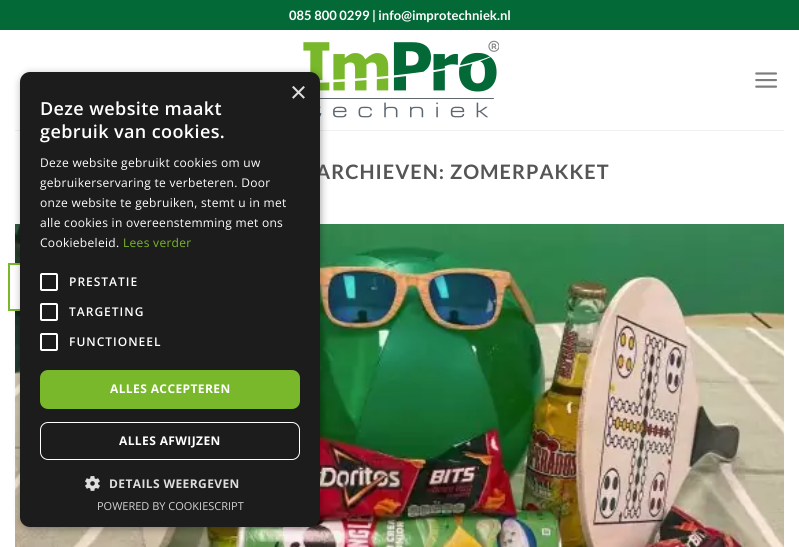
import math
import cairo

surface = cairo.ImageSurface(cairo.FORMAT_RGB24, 799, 547)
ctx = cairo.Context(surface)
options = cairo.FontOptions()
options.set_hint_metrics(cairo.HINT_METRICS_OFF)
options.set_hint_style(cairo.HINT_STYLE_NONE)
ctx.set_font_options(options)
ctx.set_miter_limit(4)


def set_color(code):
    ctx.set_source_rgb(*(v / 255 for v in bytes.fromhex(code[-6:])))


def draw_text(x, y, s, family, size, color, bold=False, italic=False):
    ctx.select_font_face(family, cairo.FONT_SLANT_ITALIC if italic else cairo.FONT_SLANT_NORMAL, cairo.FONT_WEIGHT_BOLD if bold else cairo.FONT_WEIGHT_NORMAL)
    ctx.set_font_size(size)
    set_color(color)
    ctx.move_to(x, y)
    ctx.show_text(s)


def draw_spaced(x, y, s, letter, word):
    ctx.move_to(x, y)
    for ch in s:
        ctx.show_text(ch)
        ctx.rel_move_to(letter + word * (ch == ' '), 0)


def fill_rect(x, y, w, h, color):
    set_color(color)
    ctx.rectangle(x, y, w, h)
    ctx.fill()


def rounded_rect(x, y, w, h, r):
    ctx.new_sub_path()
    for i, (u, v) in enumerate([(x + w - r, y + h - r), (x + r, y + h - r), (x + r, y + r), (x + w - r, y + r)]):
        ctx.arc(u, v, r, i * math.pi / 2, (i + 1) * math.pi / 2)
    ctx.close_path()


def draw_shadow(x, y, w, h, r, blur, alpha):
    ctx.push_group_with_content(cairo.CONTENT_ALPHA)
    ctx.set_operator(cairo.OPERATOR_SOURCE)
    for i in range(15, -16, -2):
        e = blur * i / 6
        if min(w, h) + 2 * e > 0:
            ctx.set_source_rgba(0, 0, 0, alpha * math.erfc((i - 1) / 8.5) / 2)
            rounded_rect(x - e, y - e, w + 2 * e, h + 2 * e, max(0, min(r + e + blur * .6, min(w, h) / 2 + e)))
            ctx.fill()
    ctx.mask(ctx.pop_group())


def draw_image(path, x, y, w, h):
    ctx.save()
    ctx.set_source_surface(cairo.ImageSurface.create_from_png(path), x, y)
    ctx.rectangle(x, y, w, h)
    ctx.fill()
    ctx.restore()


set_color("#ffffff")
ctx.paint()
draw_image("assets/img2.png", 303, 40, 196, 78)
fill_rect(15, 130, 769, 1, "#f1f1f1")
draw_image("assets/img4.png", 15, 224, 769, 323)
fill_rect(15, 265, 5, 44, "#ffffff")
ctx.rectangle(9, 264, 46, 46)
set_color("#78b82a")
ctx.stroke()
set_color("#000000")
draw_shadow(21, 74, 300, 455, 10, 4, 0.35)
ctx.select_font_face("Lato", cairo.FONT_SLANT_NORMAL, cairo.FONT_WEIGHT_BOLD)
ctx.set_font_size(19.9)
set_color("#555555")
draw_spaced(316, 179, "ARCHIEVEN: ZOMERPAKKET", 1, 0)
set_color("#1c1c1c")
rounded_rect(20, 72, 300, 455, 10)
ctx.fill()
draw_text(290, 102, "×", "Liberation Sans", 29, "#dddddd")
ctx.select_font_face("Open Sans SemiBold")
ctx.set_font_size(18)
set_color("#ffffff")
draw_spaced(40, 115, "Deze website maakt", 0.4, 0)
draw_spaced(40, 138, "gebruik van cookies.", 0.4, 0)
ctx.select_font_face("Open Sans")
ctx.set_font_size(12)
draw_spaced(40, 167, "Deze website gebruikt cookies om uw", 0.3, 0)
draw_spaced(40, 187, "gebruikerservaring te verbeteren. Door", 0.3, 0)
draw_spaced(40, 207, "onze website te gebruiken, stemt u in met", 0.3, 0)
draw_spaced(40, 227, "alle cookies in overeenstemming met ons", 0.3, 0)
draw_spaced(40, 247, "Cookiebeleid.", 0.3, 0)
set_color("#78b82a")
draw_spaced(123, 247, "Lees verder", 0.3, 0)
rounded_rect(41, 274, 16, 16, 1)
set_color("#ffffff")
ctx.stroke()
ctx.select_font_face("Open Sans SemiBold")
draw_spaced(69, 286, "PRESTATIE", 1, 0)
rounded_rect(41, 304, 16, 16, 1)
ctx.stroke()
draw_spaced(69, 316, "TARGETING", 1, 0)
rounded_rect(41, 334, 16, 16, 1)
ctx.stroke()
draw_spaced(69, 346, "FUNCTIONEEL", 1, 0)
set_color("#78b82a")
rounded_rect(40, 370, 260, 39, 8)
ctx.fill()
ctx.select_font_face("Open Sans", cairo.FONT_SLANT_NORMAL, cairo.FONT_WEIGHT_BOLD)
set_color("#ffffff")
draw_spaced(110, 393, "ALLES ACCEPTEREN", 0.4, 0)
rounded_rect(40.5, 422.5, 259, 37, 7.5)
ctx.set_line_width(1)
ctx.stroke()
draw_spaced(119, 445, "ALLES AFWIJZEN", 0.4, 0)
draw_image("assets/img1.png", 85, 476, 15, 15)
set_color("#dddddd")
draw_spaced(109, 488, "DETAILS WEERGEVEN", 0.4, 0)
draw_text(97, 510, "POWERED BY COOKIESCRIPT", "Open Sans", 11, "#d2d2d2")
fill_rect(0, 0, 799, 30, "#036937")
draw_text(289, 20, "085 800 0299 | info@improtechniek.nl", "Lato", 13, "#ffffff", bold=True)
draw_image("assets/img3.png", 755, 72, 23, 16)
surface.write_to_png("output.png")
